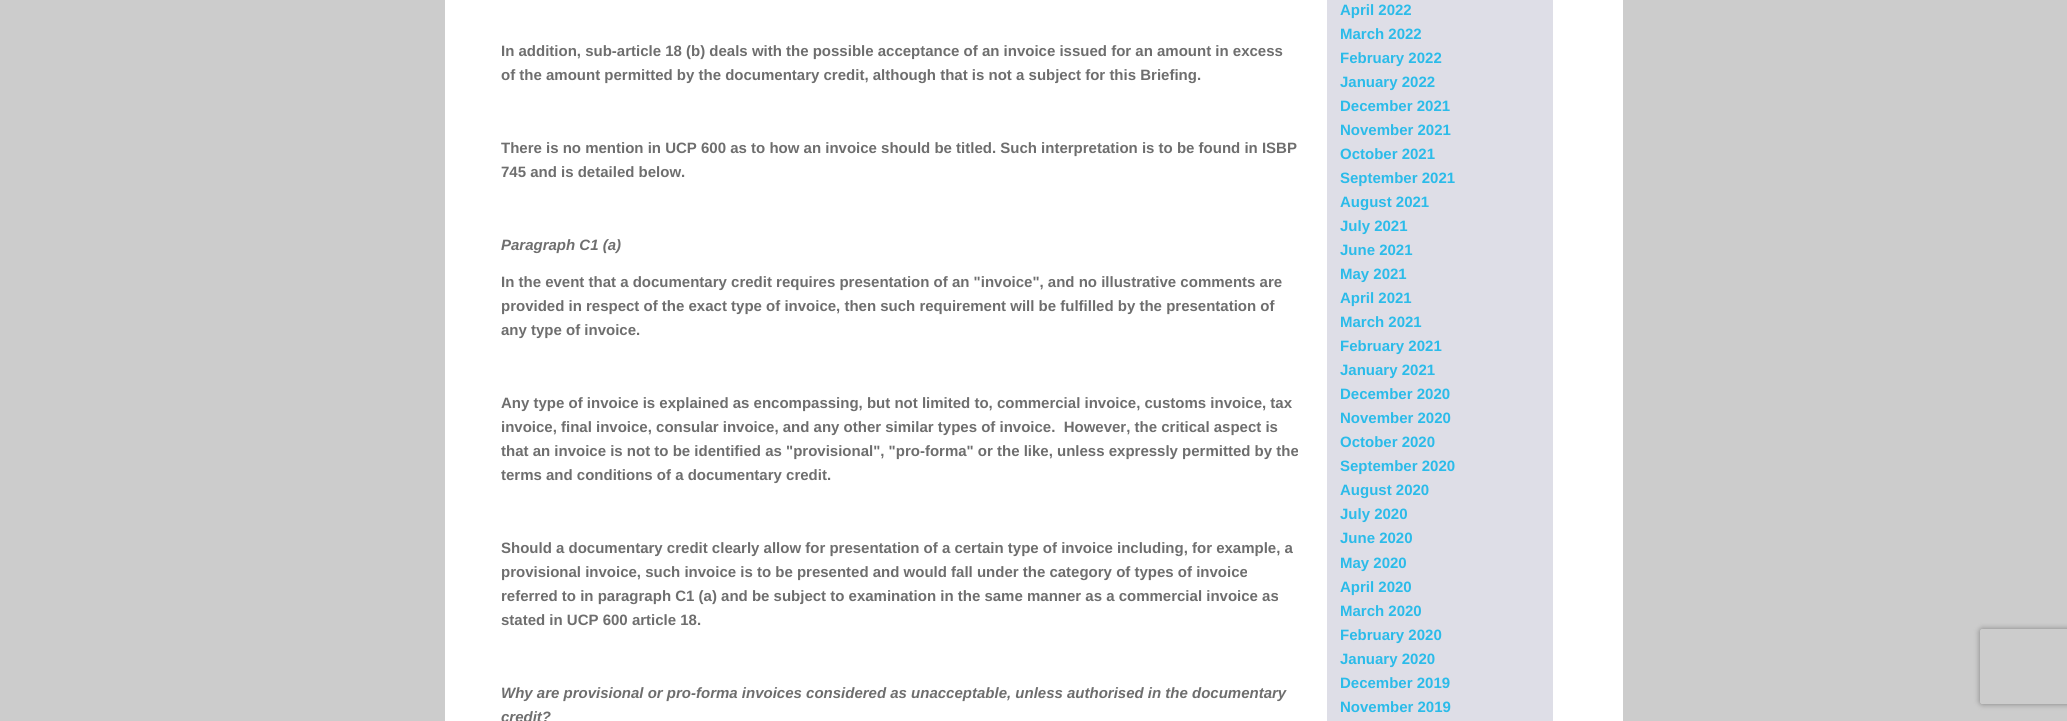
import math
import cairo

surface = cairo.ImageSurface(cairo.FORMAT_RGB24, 2067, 721)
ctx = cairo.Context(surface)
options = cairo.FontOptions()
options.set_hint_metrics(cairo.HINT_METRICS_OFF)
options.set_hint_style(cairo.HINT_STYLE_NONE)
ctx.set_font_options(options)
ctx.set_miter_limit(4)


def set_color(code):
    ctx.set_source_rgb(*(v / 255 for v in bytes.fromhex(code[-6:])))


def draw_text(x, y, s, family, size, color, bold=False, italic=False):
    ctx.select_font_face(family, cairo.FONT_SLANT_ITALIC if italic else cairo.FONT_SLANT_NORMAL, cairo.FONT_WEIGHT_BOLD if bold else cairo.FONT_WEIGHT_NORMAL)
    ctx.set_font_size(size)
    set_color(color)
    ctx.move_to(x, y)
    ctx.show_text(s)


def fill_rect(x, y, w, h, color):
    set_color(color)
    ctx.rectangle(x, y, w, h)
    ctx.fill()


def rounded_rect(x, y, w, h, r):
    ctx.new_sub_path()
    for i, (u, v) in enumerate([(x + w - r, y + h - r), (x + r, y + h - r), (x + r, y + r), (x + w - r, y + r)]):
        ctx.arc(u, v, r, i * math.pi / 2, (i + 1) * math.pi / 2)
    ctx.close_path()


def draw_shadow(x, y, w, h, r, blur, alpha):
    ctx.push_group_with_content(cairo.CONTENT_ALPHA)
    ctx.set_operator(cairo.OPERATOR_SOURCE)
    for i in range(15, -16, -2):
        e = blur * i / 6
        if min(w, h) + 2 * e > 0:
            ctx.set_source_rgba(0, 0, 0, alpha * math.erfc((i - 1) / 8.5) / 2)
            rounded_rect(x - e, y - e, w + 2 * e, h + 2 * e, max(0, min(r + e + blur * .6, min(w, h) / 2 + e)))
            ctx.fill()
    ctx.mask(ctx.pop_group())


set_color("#cccccc")
ctx.paint()
fill_rect(445, 0, 1178, 721, "#ffffff")
draw_text(501, 56, "In addition, sub-article 18 (b) deals with the possible acceptance of an invoice issued for an amount in excess", "Liberation Sans", 15, "#6e6e6e", bold=True)
draw_text(501, 80, "of the amount permitted by the documentary credit, although that is not a subject for this Briefing.", "Liberation Sans", 15, "#6e6e6e", bold=True)
draw_text(501, 153, "There is no mention in UCP 600 as to how an invoice should be titled. Such interpretation is to be found in ISBP", "Liberation Sans", 15, "#6e6e6e", bold=True)
draw_text(501, 177, "745 and is detailed below.", "Liberation Sans", 15, "#6e6e6e", bold=True)
draw_text(501, 250, "Paragraph C1 (a)", "Liberation Sans", 15, "#6e6e6e", bold=True, italic=True)
draw_text(501, 287, "In the event that a documentary credit requires presentation of an \"invoice\", and no illustrative comments are", "Liberation Sans", 15, "#6e6e6e", bold=True)
draw_text(501, 311, "provided in respect of the exact type of invoice, then such requirement will be fulfilled by the presentation of", "Liberation Sans", 15, "#6e6e6e", bold=True)
draw_text(501, 335, "any type of invoice.", "Liberation Sans", 15, "#6e6e6e", bold=True)
draw_text(501, 408, "Any type of invoice is explained as encompassing, but not limited to, commercial invoice, customs invoice, tax", "Liberation Sans", 15, "#6e6e6e", bold=True)
draw_text(501, 432, "invoice, final invoice, consular invoice, and any other similar types of invoice.  However, the critical aspect is", "Liberation Sans", 15, "#6e6e6e", bold=True)
draw_text(501, 456, "that an invoice is not to be identified as \"provisional\", \"pro-forma\" or the like, unless expressly permitted by the", "Liberation Sans", 15, "#6e6e6e", bold=True)
draw_text(501, 480, "terms and conditions of a documentary credit.", "Liberation Sans", 15, "#6e6e6e", bold=True)
draw_text(501, 553, "Should a documentary credit clearly allow for presentation of a certain type of invoice including, for example, a", "Liberation Sans", 15, "#6e6e6e", bold=True)
draw_text(501, 577, "provisional invoice, such invoice is to be presented and would fall under the category of types of invoice", "Liberation Sans", 15, "#6e6e6e", bold=True)
draw_text(501, 601, "referred to in paragraph C1 (a) and be subject to examination in the same manner as a commercial invoice as", "Liberation Sans", 15, "#6e6e6e", bold=True)
draw_text(501, 625, "stated in UCP 600 article 18.", "Liberation Sans", 15, "#6e6e6e", bold=True)
draw_text(501, 698, "Why are provisional or pro-forma invoices considered as unacceptable, unless authorised in the documentary", "Liberation Sans", 15, "#6e6e6e", bold=True, italic=True)
draw_text(501, 722, "credit?", "Liberation Sans", 15, "#6e6e6e", bold=True, italic=True)
fill_rect(1327, 0, 226, 721, "#dedee7")
draw_text(1340, 15, "April 2022", "Liberation Sans", 15, "#2bbbe9", bold=True)
draw_text(1340, 39, "March 2022", "Liberation Sans", 15, "#2bbbe9", bold=True)
draw_text(1340, 63, "February 2022", "Liberation Sans", 15, "#2bbbe9", bold=True)
draw_text(1340, 87, "January 2022", "Liberation Sans", 15, "#2bbbe9", bold=True)
draw_text(1340, 111, "December 2021", "Liberation Sans", 15, "#2bbbe9", bold=True)
draw_text(1340, 135, "November 2021", "Liberation Sans", 15, "#2bbbe9", bold=True)
draw_text(1340, 159, "October 2021", "Liberation Sans", 15, "#2bbbe9", bold=True)
draw_text(1340, 183, "September 2021", "Liberation Sans", 15, "#2bbbe9", bold=True)
draw_text(1340, 207, "August 2021", "Liberation Sans", 15, "#2bbbe9", bold=True)
draw_text(1340, 231, "July 2021", "Liberation Sans", 15, "#2bbbe9", bold=True)
draw_text(1340, 255, "June 2021", "Liberation Sans", 15, "#2bbbe9", bold=True)
draw_text(1340, 279, "May 2021", "Liberation Sans", 15, "#2bbbe9", bold=True)
draw_text(1340, 303, "April 2021", "Liberation Sans", 15, "#2bbbe9", bold=True)
draw_text(1340, 327, "March 2021", "Liberation Sans", 15, "#2bbbe9", bold=True)
draw_text(1340, 351, "February 2021", "Liberation Sans", 15, "#2bbbe9", bold=True)
draw_text(1340, 375, "January 2021", "Liberation Sans", 15, "#2bbbe9", bold=True)
draw_text(1340, 399, "December 2020", "Liberation Sans", 15, "#2bbbe9", bold=True)
draw_text(1340, 423, "November 2020", "Liberation Sans", 15, "#2bbbe9", bold=True)
draw_text(1340, 447, "October 2020", "Liberation Sans", 15, "#2bbbe9", bold=True)
draw_text(1340, 471, "September 2020", "Liberation Sans", 15, "#2bbbe9", bold=True)
draw_text(1340, 495, "August 2020", "Liberation Sans", 15, "#2bbbe9", bold=True)
draw_text(1340, 519, "July 2020", "Liberation Sans", 15, "#2bbbe9", bold=True)
draw_text(1340, 543, "June 2020", "Liberation Sans", 15, "#2bbbe9", bold=True)
draw_text(1340, 568, "May 2020", "Liberation Sans", 15, "#2bbbe9", bold=True)
draw_text(1340, 592, "April 2020", "Liberation Sans", 15, "#2bbbe9", bold=True)
draw_text(1340, 616, "March 2020", "Liberation Sans", 15, "#2bbbe9", bold=True)
draw_text(1340, 640, "February 2020", "Liberation Sans", 15, "#2bbbe9", bold=True)
draw_text(1340, 664, "January 2020", "Liberation Sans", 15, "#2bbbe9", bold=True)
draw_text(1340, 688, "December 2019", "Liberation Sans", 15, "#2bbbe9", bold=True)
draw_text(1340, 712, "November 2019", "Liberation Sans", 15, "#2bbbe9", bold=True)
ctx.save()
ctx.set_fill_rule(cairo.FILL_RULE_EVEN_ODD)
ctx.new_path()
ctx.move_to(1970, 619)
ctx.line_to(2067, 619)
ctx.line_to(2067, 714)
ctx.line_to(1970, 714)
ctx.close_path()
ctx.move_to(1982.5, 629)
ctx.line_to(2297.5, 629)
ctx.curve_to(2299, 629, 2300, 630, 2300, 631.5)
ctx.line_to(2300, 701.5)
ctx.curve_to(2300, 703, 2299, 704, 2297.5, 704)
ctx.line_to(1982.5, 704)
ctx.curve_to(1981, 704, 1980, 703, 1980, 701.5)
ctx.line_to(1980, 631.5)
ctx.curve_to(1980, 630, 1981, 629, 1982.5, 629)
ctx.close_path()
ctx.clip()
set_color("#808080")
draw_shadow(1980, 629, 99, 75, 2.5, 3, 1)
ctx.restore()
surface.write_to_png("output.png")
